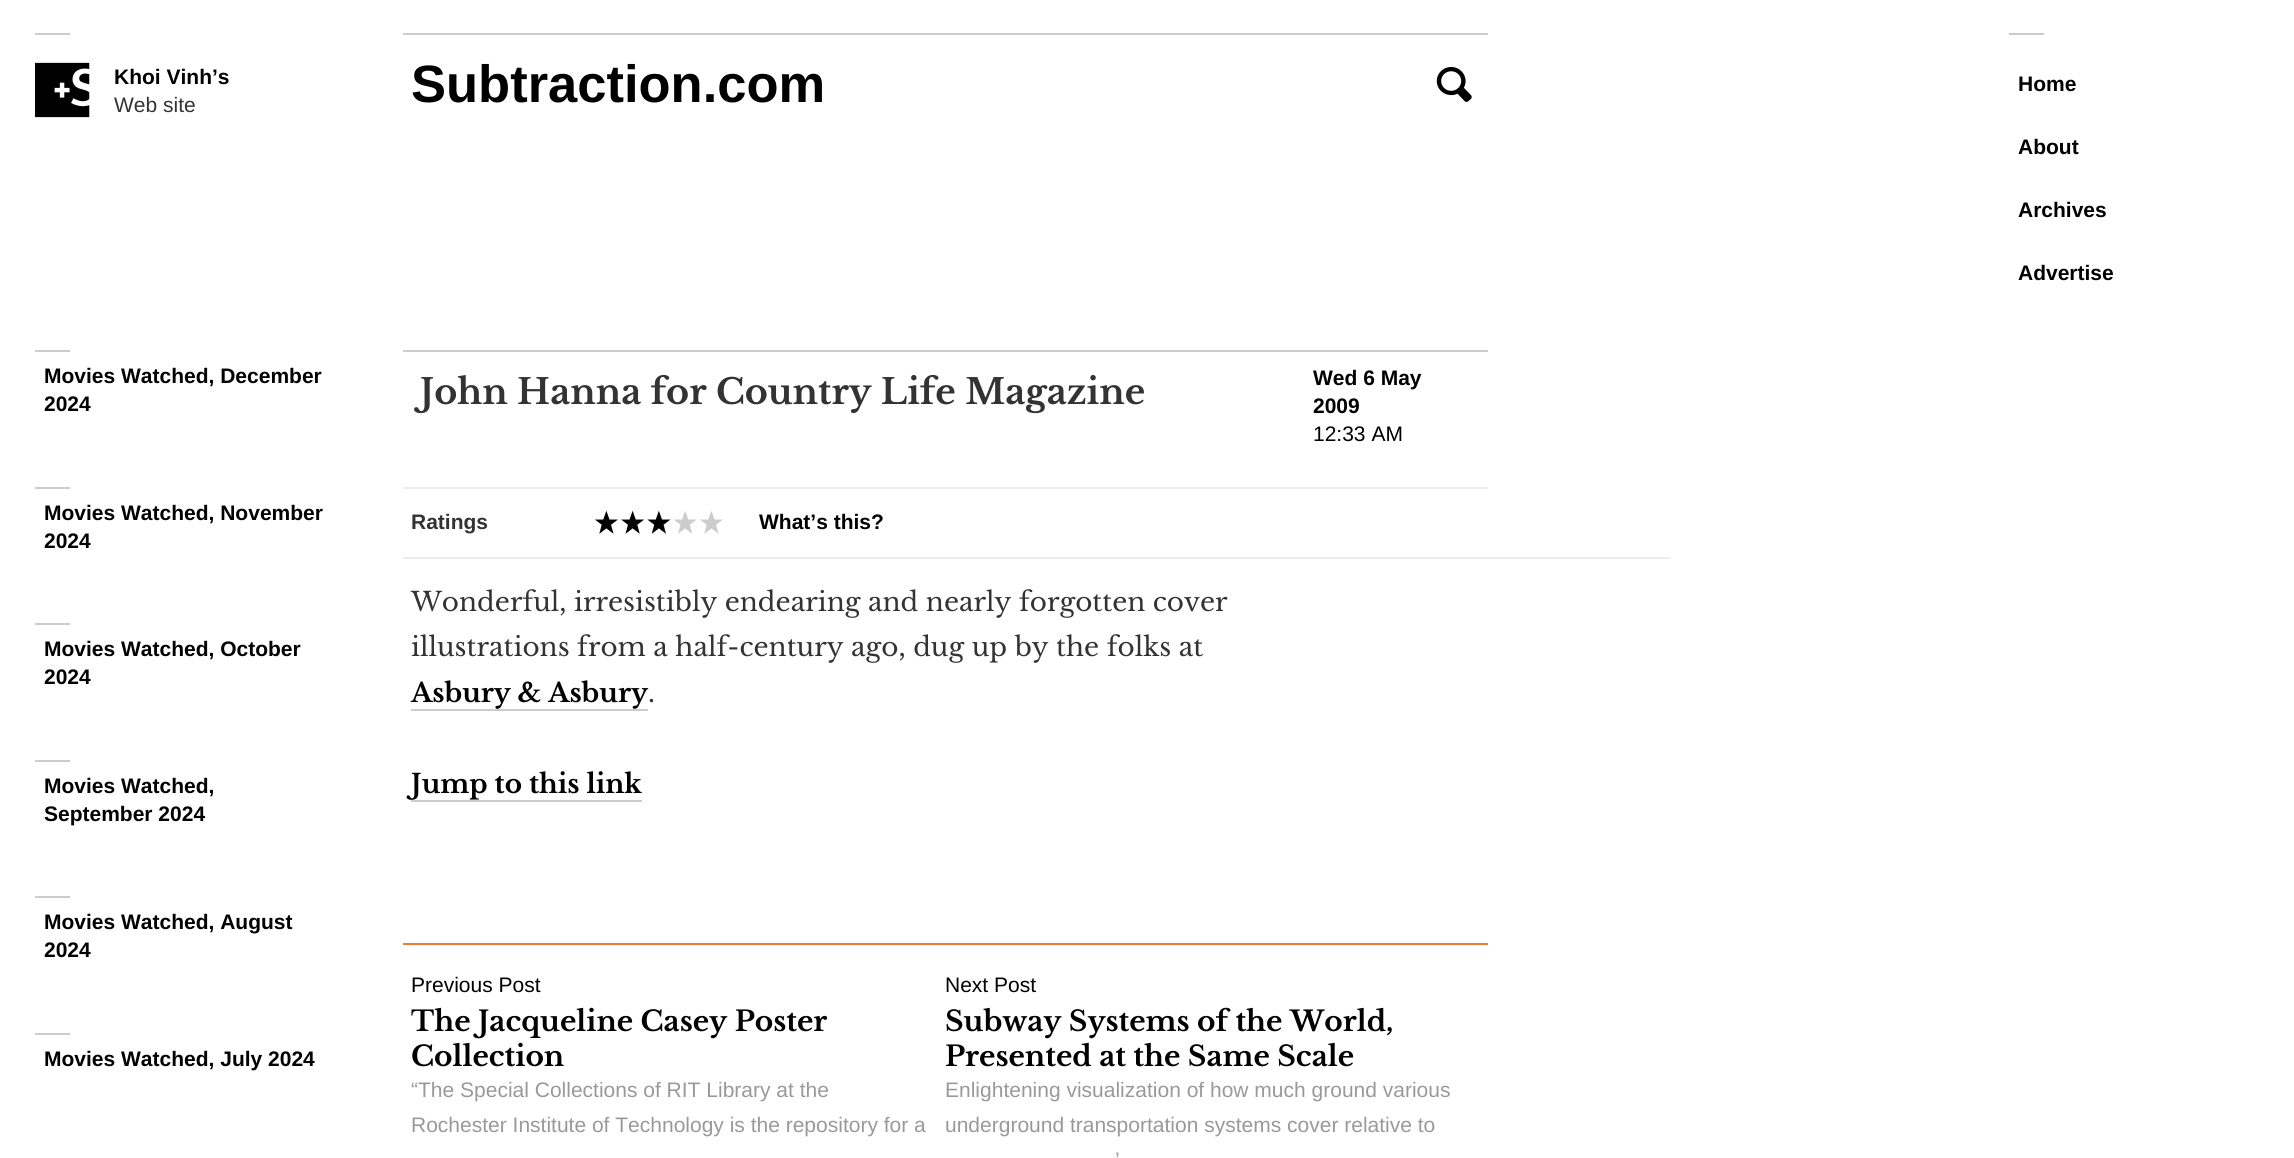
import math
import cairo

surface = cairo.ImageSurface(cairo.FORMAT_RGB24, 2294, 1158)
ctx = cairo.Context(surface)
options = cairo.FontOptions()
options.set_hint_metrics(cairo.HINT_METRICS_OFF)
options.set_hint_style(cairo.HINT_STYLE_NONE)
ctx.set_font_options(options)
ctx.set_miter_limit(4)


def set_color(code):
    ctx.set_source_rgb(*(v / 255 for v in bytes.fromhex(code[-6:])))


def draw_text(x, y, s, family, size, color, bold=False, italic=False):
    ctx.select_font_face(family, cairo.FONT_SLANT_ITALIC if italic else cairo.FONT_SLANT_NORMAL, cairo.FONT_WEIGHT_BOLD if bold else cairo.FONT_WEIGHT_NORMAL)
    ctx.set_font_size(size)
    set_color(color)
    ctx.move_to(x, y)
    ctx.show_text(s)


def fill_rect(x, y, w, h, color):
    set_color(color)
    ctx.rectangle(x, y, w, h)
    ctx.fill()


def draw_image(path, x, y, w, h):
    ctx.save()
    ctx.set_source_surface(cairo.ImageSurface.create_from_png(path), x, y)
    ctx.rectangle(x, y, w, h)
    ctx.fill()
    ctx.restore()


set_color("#ffffff")
ctx.paint()
fill_rect(35, 33, 35, 2, "#cccccc")
draw_image("assets/img1.png", 35, 62, 55, 56)
draw_text(114, 84, "Khoi Vinh’s", "Liberation Sans", 21, "#000000", bold=True)
draw_text(114, 112, "Web site", "Liberation Sans", 21, "#333333")
fill_rect(35, 350, 35, 2, "#cccccc")
draw_text(44, 383, "Movies Watched, December", "Liberation Sans", 21, "#000000", bold=True)
draw_text(44, 411, "2024", "Liberation Sans", 21, "#000000", bold=True)
fill_rect(35, 487, 35, 2, "#cccccc")
draw_text(44, 520, "Movies Watched, November", "Liberation Sans", 21, "#000000", bold=True)
draw_text(44, 548, "2024", "Liberation Sans", 21, "#000000", bold=True)
fill_rect(35, 623, 35, 2, "#cccccc")
draw_text(44, 656, "Movies Watched, October", "Liberation Sans", 21, "#000000", bold=True)
draw_text(44, 684, "2024", "Liberation Sans", 21, "#000000", bold=True)
fill_rect(35, 760, 35, 2, "#cccccc")
draw_text(44, 793, "Movies Watched,", "Liberation Sans", 21, "#000000", bold=True)
draw_text(44, 821, "September 2024", "Liberation Sans", 21, "#000000", bold=True)
fill_rect(35, 896, 35, 2, "#cccccc")
draw_text(44, 929, "Movies Watched, August", "Liberation Sans", 21, "#000000", bold=True)
draw_text(44, 957, "2024", "Liberation Sans", 21, "#000000", bold=True)
fill_rect(35, 1033, 35, 2, "#cccccc")
draw_text(44, 1066, "Movies Watched, July 2024", "Liberation Sans", 21, "#000000", bold=True)
fill_rect(403, 33, 1085, 2, "#cccccc")
draw_text(411, 102, "Subtraction.com", "Liberation Sans", 52.5, "#000000", bold=True)
draw_image("assets/img2.png", 1436, 66, 36, 36)
fill_rect(2009, 33, 35, 2, "#cccccc")
draw_text(2018, 91, "Home", "Liberation Sans", 21, "#000000", bold=True)
draw_text(2018, 154, "About", "Liberation Sans", 21, "#000000", bold=True)
draw_text(2018, 217, "Archives", "Liberation Sans", 21, "#000000", bold=True)
draw_text(2018, 280, "Advertise", "Liberation Sans", 21, "#000000", bold=True)
fill_rect(403, 350, 1085, 2, "#cccccc")
fill_rect(403, 487, 1085, 2, "#ededed")
draw_text(420, 404, "John Hanna for Country Life Magazine", "Libre Baskerville", 35, "#333333", bold=True)
draw_text(1313, 385, "Wed 6 May", "Liberation Sans", 21, "#000000", bold=True)
draw_text(1313, 413, "2009", "Liberation Sans", 21, "#000000", bold=True)
draw_text(1313, 441, "12:33 AM", "Liberation Sans", 21, "#000000")
fill_rect(403, 557, 1268, 2, "#ededed")
draw_text(411, 529, "Ratings", "Liberation Sans", 21, "#333333", bold=True)
draw_image("assets/img3.png", 595, 510, 76, 24)
draw_image("assets/img4.png", 674, 511, 49, 23)
draw_text(759, 529, "What’s this?", "Liberation Sans", 21, "#000000", bold=True)
draw_text(411, 611, "Wonderful, irresistibly endearing and nearly forgotten cover", "Libre Baskerville", 26.25, "#333333")
draw_text(411, 656, "illustrations from a half-century ago, dug up by the folks at", "Libre Baskerville", 26.25, "#333333")
draw_text(411, 702, "Asbury & Asbury", "Libre Baskerville", 26.25, "#000000", bold=True)
fill_rect(411, 709, 237, 2, "#cccccc")
draw_text(648, 702, ".", "Libre Baskerville", 26.25, "#333333")
draw_text(411, 793, "Jump to this link", "Libre Baskerville", 26.25, "#000000", bold=True)
fill_rect(411, 800, 231, 2, "#cccccc")
fill_rect(403, 943, 1085, 2, "#f07834")
draw_text(411, 992, "Previous Post", "Liberation Sans", 21, "#000000")
draw_text(411, 1031, "The Jacqueline Casey Poster", "Libre Baskerville", 28, "#000000", bold=True)
draw_text(411, 1066, "Collection", "Libre Baskerville", 28, "#000000", bold=True)
draw_text(411, 1097, "“The Special Collections of RIT Library at the", "Liberation Sans", 21, "#999999")
draw_text(411, 1132, "Rochester Institute of Technology is the repository for a", "Liberation Sans", 21, "#999999")
draw_text(945, 992, "Next Post", "Liberation Sans", 21, "#000000")
draw_text(945, 1031, "Subway Systems of the World,", "Libre Baskerville", 28, "#000000", bold=True)
draw_text(945, 1066, "Presented at the Same Scale", "Libre Baskerville", 28, "#000000", bold=True)
draw_text(945, 1097, "Enlightening visualization of how much ground various", "Liberation Sans", 21, "#999999")
draw_text(945, 1132, "underground transportation systems cover relative to", "Liberation Sans", 21, "#999999")
draw_text(1115, 1167, "’", "Liberation Sans", 21, "#999999")
surface.write_to_png("output.png")
